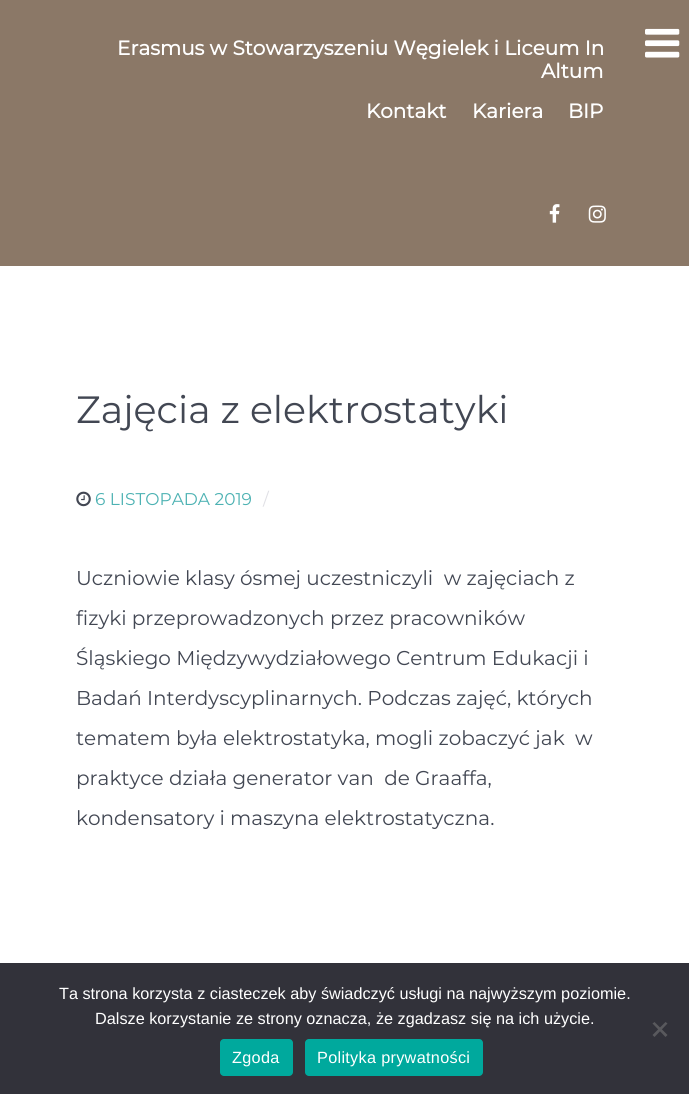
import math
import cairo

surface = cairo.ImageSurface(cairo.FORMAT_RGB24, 689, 1094)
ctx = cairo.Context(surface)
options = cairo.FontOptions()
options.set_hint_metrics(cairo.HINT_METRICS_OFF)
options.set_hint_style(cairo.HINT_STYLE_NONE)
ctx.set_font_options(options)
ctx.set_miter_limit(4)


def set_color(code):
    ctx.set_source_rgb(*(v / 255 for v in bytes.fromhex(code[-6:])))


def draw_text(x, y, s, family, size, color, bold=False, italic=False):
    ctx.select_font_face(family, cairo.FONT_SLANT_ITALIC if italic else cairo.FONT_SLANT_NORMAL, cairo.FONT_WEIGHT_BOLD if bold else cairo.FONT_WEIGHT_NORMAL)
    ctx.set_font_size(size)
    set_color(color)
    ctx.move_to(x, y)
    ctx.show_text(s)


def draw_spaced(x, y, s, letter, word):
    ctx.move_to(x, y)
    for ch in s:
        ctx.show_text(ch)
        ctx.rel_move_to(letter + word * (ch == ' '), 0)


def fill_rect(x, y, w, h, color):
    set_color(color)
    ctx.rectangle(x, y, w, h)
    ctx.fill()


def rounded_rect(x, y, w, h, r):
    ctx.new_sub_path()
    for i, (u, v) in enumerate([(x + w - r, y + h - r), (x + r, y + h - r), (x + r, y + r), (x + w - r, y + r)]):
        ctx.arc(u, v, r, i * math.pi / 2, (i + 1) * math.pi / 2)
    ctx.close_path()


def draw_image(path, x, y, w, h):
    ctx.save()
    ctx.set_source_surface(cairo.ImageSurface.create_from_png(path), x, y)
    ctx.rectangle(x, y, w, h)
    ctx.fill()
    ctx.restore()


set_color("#ffffff")
ctx.paint()
fill_rect(0, 0, 689, 266, "#8b7867")
draw_text(117, 55, "Erasmus w Stowarzyszeniu Węgielek i Liceum In", "Montserrat", 20, "#ffffff", bold=True)
draw_text(541, 78, "Altum", "Montserrat", 20, "#ffffff", bold=True)
draw_text(366, 118, "Kontakt", "Montserrat", 20, "#ffffff", bold=True)
draw_text(472, 118, "Kariera", "Montserrat", 20, "#ffffff", bold=True)
draw_text(568, 118, "BIP", "Montserrat", 20, "#ffffff", bold=True)
draw_image("assets/img1.png", 549, 204, 11, 19)
draw_image("assets/img2.png", 588, 205, 18, 18)
draw_image("assets/img3.png", 645, 28, 35, 30)
draw_text(76, 423, "Zajęcia z elektrostatyki", "Montserrat Thin", 38, "#424753")
draw_image("assets/img4.png", 76, 491, 15, 16)
draw_text(95, 505, "6 LISTOPADA 2019", "Montserrat Thin", 17, "#4db2b3")
draw_text(263, 505, "/", "Montserrat Thin", 17, "#e0e0e5")
draw_text(76, 585, "Uczniowie klasy ósmej uczestniczyli  w zajęciach z", "Montserrat Thin", 20, "#424753")
draw_text(76, 625, "fizyki przeprowadzonych przez pracowników", "Montserrat Thin", 20, "#424753")
draw_text(76, 665, "Śląskiego Międzywydziałowego Centrum Edukacji i", "Montserrat Thin", 20, "#424753")
draw_text(76, 705, "Badań Interdyscyplinarnych. Podczas zajęć, których", "Montserrat Thin", 20, "#424753")
draw_text(76, 745, "tematem była elektrostatyka, mogli zobaczyć jak  w", "Montserrat Thin", 20, "#424753")
draw_text(76, 785, "praktyce działa generator van  de Graaffa,", "Montserrat Thin", 20, "#424753")
draw_text(76, 825, "kondensatory i maszyna elektrostatyczna.", "Montserrat Thin", 20, "#424753")
fill_rect(0, 963, 689, 131, "#32323a")
draw_text(59, 999, "Ta strona korzysta z ciasteczek aby świadczyć usługi na najwyższym poziomie.", "Liberation Sans", 16.25, "#ffffff")
draw_text(95, 1024, "Dalsze korzystanie ze strony oznacza, że zgadzasz się na ich użycie.", "Liberation Sans", 16.25, "#ffffff")
set_color("#59595d")
ctx.new_path()
ctx.move_to(665.5, 1022)
ctx.line_to(667.5, 1023.5)
ctx.line_to(654.5, 1037)
ctx.line_to(652.5, 1035)
ctx.close_path()
ctx.fill()
ctx.new_path()
ctx.move_to(652.5, 1023.5)
ctx.line_to(654.5, 1022)
ctx.line_to(667.5, 1035)
ctx.line_to(665.5, 1037)
ctx.close_path()
ctx.fill()
set_color("#00a99d")
rounded_rect(220, 1039, 73, 37, 4)
ctx.fill()
set_color("#ffffff")
draw_spaced(232, 1063, "Zgoda", 0.3, 0)
set_color("#00a99d")
rounded_rect(305, 1039, 178, 37, 4)
ctx.fill()
set_color("#ffffff")
draw_spaced(317, 1063, "Polityka prywatności", 0.3, 0)
surface.write_to_png("output.png")
